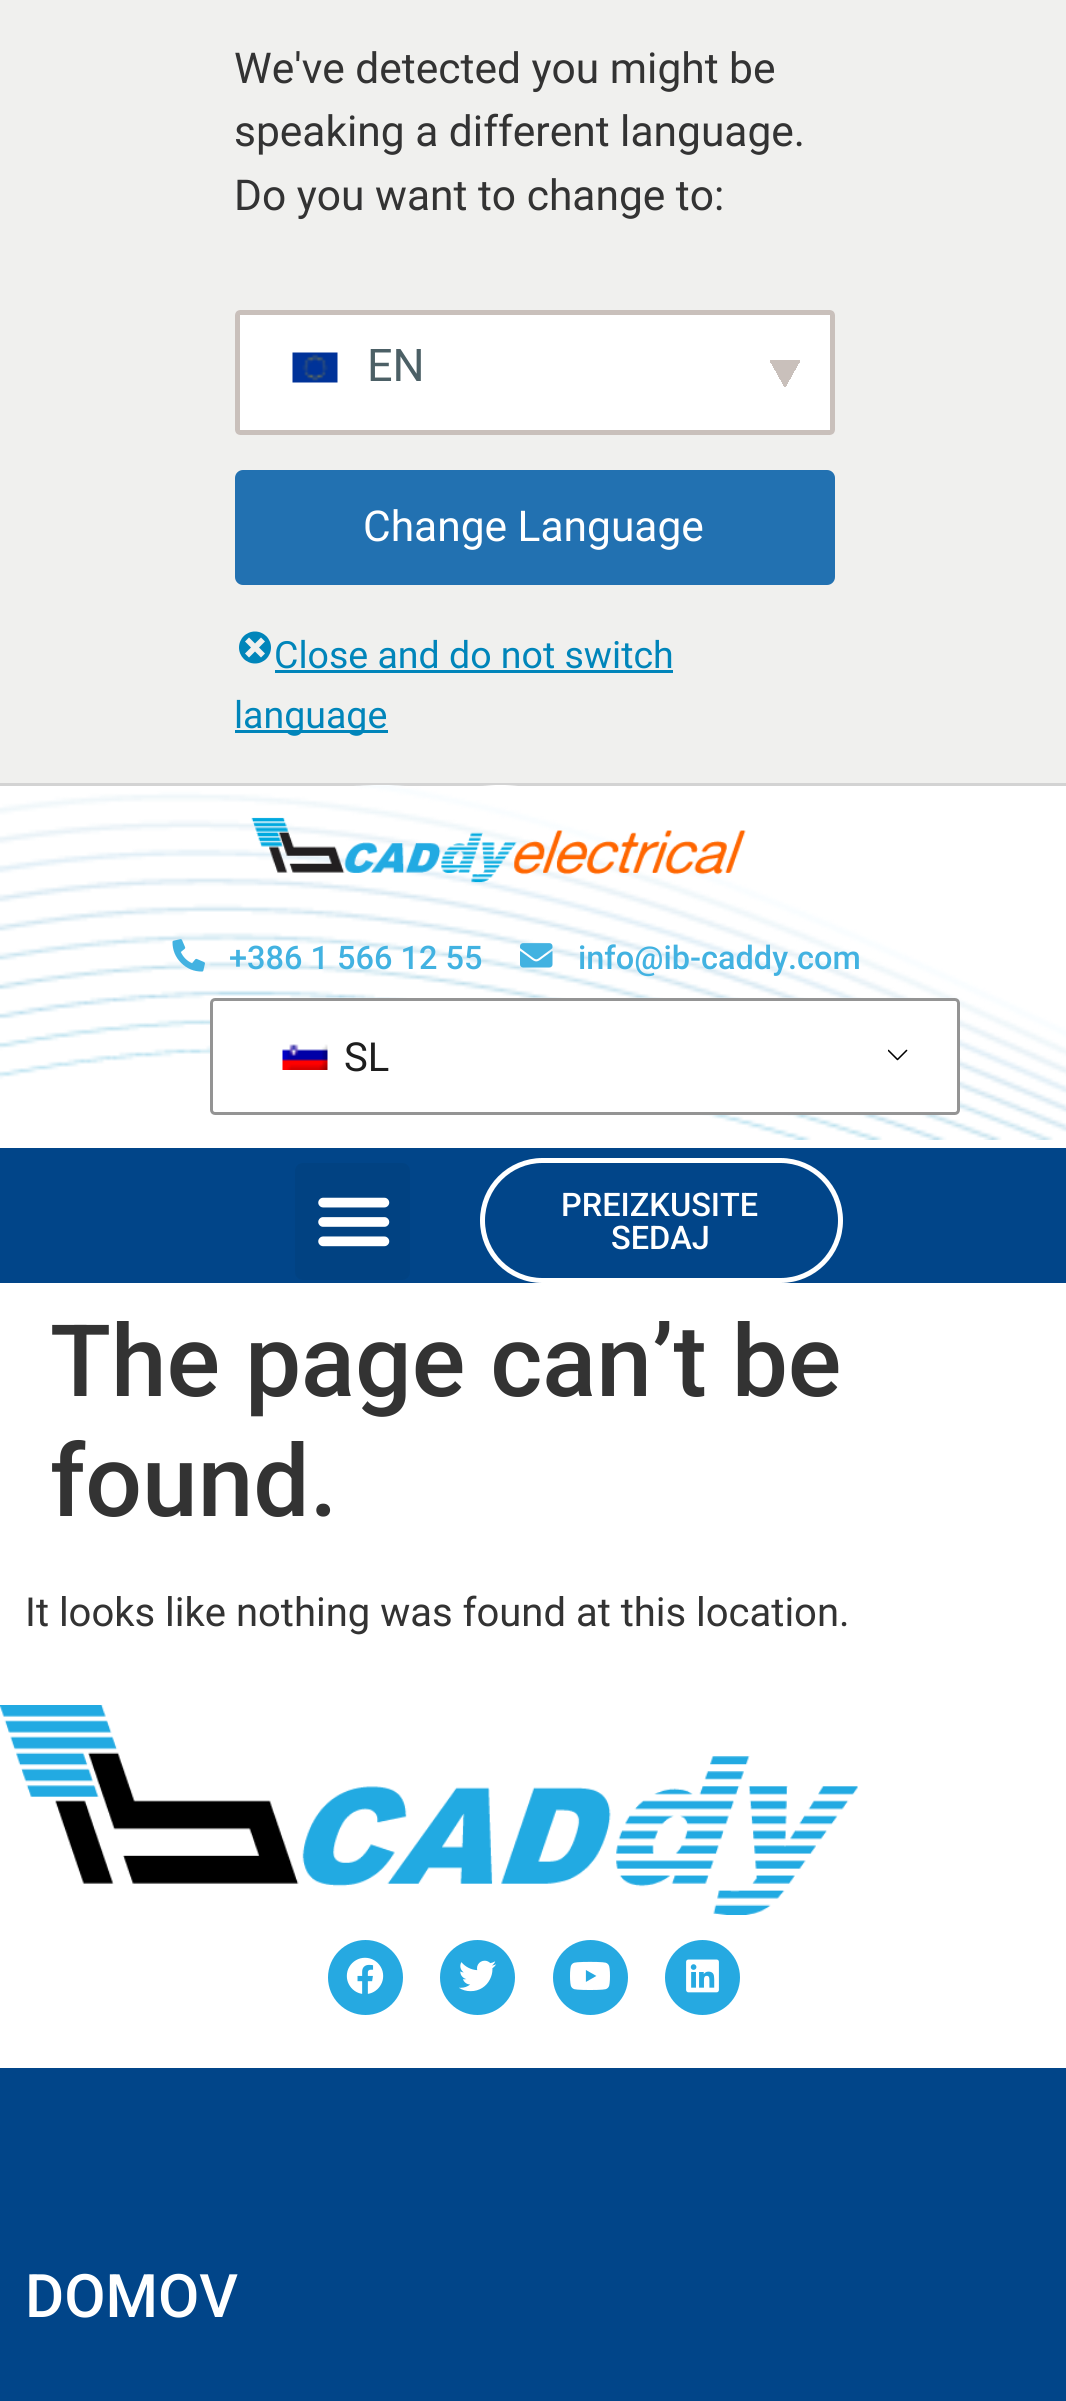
import math
import cairo

surface = cairo.ImageSurface(cairo.FORMAT_RGB24, 1066, 2401)
ctx = cairo.Context(surface)
options = cairo.FontOptions()
options.set_hint_metrics(cairo.HINT_METRICS_OFF)
options.set_hint_style(cairo.HINT_STYLE_NONE)
ctx.set_font_options(options)
ctx.set_miter_limit(4)


def set_color(code):
    ctx.set_source_rgb(*(v / 255 for v in bytes.fromhex(code[-6:])))


def draw_text(x, y, s, family, size, color, bold=False, italic=False):
    ctx.select_font_face(family, cairo.FONT_SLANT_ITALIC if italic else cairo.FONT_SLANT_NORMAL, cairo.FONT_WEIGHT_BOLD if bold else cairo.FONT_WEIGHT_NORMAL)
    ctx.set_font_size(size)
    set_color(color)
    ctx.move_to(x, y)
    ctx.show_text(s)


def fill_rect(x, y, w, h, color):
    set_color(color)
    ctx.rectangle(x, y, w, h)
    ctx.fill()


def rounded_rect(x, y, w, h, r):
    ctx.new_sub_path()
    for i, (u, v) in enumerate([(x + w - r, y + h - r), (x + r, y + h - r), (x + r, y + r), (x + w - r, y + r)]):
        ctx.arc(u, v, r, i * math.pi / 2, (i + 1) * math.pi / 2)
    ctx.close_path()


def draw_image(path, x, y, w, h):
    ctx.save()
    ctx.set_source_surface(cairo.ImageSurface.create_from_png(path), x, y)
    ctx.rectangle(x, y, w, h)
    ctx.fill()
    ctx.restore()


set_color("#ffffff")
ctx.paint()
fill_rect(0, 0, 1066, 783, "#f0f0ee")
fill_rect(0, 783, 1066, 3, "#d3d3d3")
draw_text(234, 83, "We've detected you might be", "Roboto", 42.5, "#333333")
draw_text(234, 146, "speaking a different language.", "Roboto", 42.5, "#333333")
draw_text(234, 210, "Do you want to change to:", "Roboto", 42.5, "#333333")
set_color("#ffffff")
rounded_rect(235, 310, 600, 125, 5)
ctx.fill()
gradient = cairo.LinearGradient(780, 368, 805, 382)
gradient.add_color_stop_rgba(0.5, 0.788, 0.753, 0.733, 1)
gradient.add_color_stop_rgba(0.5, 1, 1, 1, 1)
ctx.set_source(gradient)
ctx.rectangle(785, 360, 15, 27)
ctx.fill()
gradient = cairo.LinearGradient(765, 382, 790, 368)
gradient.add_color_stop_rgba(0.5, 1, 1, 1, 1)
gradient.add_color_stop_rgba(0.5, 0.788, 0.753, 0.733, 1)
ctx.set_source(gradient)
ctx.rectangle(770, 360, 15, 27)
ctx.fill()
rounded_rect(237.5, 312.5, 595, 120, 2.5)
set_color("#c9c0bb")
ctx.set_line_width(5)
ctx.stroke()
draw_image("assets/img1.png", 292, 352, 46, 31)
draw_text(367, 381, "EN", "Roboto", 45, "#4c6066")
set_color("#2271b1")
rounded_rect(236.5, 471.5, 597, 112, 6.5)
ctx.fill_preserve()
ctx.set_line_width(3)
ctx.stroke()
draw_text(363, 541, "Change Language", "Roboto", 42.5, "#ffffff")
draw_image("assets/img2.png", 239, 631, 32, 33)
draw_text(274, 668, "Close and do not switch", "Roboto", 37.5, "#0085ba")
fill_rect(275, 670, 398, 3, "#0085ba")
fill_rect(235, 730, 153, 3, "#0085ba")
draw_text(234, 728, "language", "Roboto", 37.5, "#0085ba")
draw_image("assets/img3.png", 0, 785, 1066, 355)
draw_image("assets/img4.png", 251, 817, 495, 66)
draw_image("assets/img5.png", 172, 939, 33, 33)
draw_text(229, 969, "+386 1 566 12 55", "Roboto Medium", 32.5, "#42b2e1")
draw_image("assets/img6.png", 520, 943, 33, 25)
draw_text(578, 969, "info@ib-caddy.com", "Roboto Medium", 32.5, "#42b2e1")
set_color("#ffffff")
rounded_rect(210, 998, 750, 117, 5)
ctx.fill()
draw_image("assets/img7.png", 888, 1049, 20, 12)
rounded_rect(211.5, 999.5, 747, 114, 3.5)
set_color("#949494")
ctx.stroke()
draw_image("assets/img8.png", 282, 1044, 46, 26)
draw_text(344, 1071, "SL", "Roboto", 40, "#1e1e1e")
fill_rect(0, 1148, 1066, 135, "#014589")
set_color("#014282")
rounded_rect(295, 1163, 115, 117, 8)
ctx.fill()
draw_image("assets/img9.png", 318, 1197, 72, 50)
rounded_rect(482.5, 1160.5, 358, 120, 60)
set_color("#ffffff")
ctx.set_line_width(5)
ctx.stroke()
draw_text(561, 1216, "PREIZKUSITE", "Roboto Medium", 32.5, "#ffffff")
draw_text(611, 1249, "SEDAJ", "Roboto Medium", 32.5, "#ffffff")
draw_text(50, 1396, "The page can’t be", "Roboto Medium", 100, "#333333")
draw_text(50, 1516, "found.", "Roboto Medium", 100, "#333333")
draw_text(25, 1626, "It looks like nothing was found at this location.", "Roboto", 40, "#333333")
draw_image("assets/img10.png", 0, 1705, 858, 210)
set_color("#26a9e1")
ctx.arc(365.5, 1977.5, 37.5, 0, 2 * math.pi)
ctx.fill()
draw_image("assets/img11.png", 346, 1957, 38, 37)
ctx.arc(477.5, 1977.5, 37.5, 0, 2 * math.pi)
ctx.fill()
draw_image("assets/img12.png", 459, 1960, 38, 32)
ctx.arc(590.5, 1977.5, 37.5, 0, 2 * math.pi)
ctx.fill()
draw_image("assets/img13.png", 570, 1961, 40, 29)
ctx.arc(702.5, 1977.5, 37.5, 0, 2 * math.pi)
ctx.fill()
draw_image("assets/img14.png", 686, 1959, 33, 34)
fill_rect(0, 2068, 1066, 333, "#014589")
draw_text(25, 2317, "DOMOV", "Roboto Medium", 60, "#ffffff")
surface.write_to_png("output.png")
